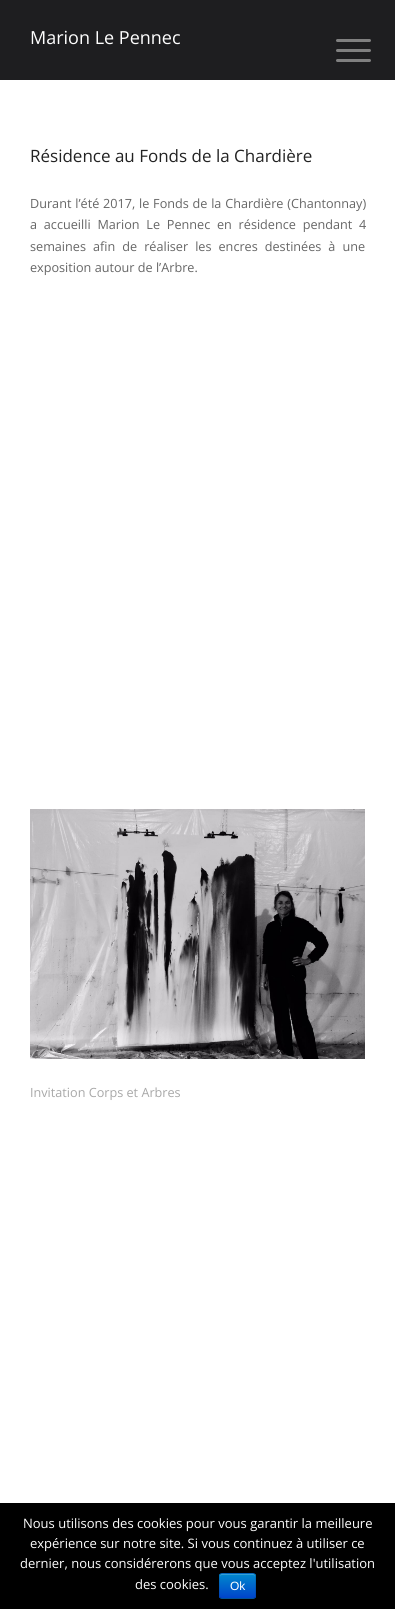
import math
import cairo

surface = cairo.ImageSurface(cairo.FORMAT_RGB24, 395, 1609)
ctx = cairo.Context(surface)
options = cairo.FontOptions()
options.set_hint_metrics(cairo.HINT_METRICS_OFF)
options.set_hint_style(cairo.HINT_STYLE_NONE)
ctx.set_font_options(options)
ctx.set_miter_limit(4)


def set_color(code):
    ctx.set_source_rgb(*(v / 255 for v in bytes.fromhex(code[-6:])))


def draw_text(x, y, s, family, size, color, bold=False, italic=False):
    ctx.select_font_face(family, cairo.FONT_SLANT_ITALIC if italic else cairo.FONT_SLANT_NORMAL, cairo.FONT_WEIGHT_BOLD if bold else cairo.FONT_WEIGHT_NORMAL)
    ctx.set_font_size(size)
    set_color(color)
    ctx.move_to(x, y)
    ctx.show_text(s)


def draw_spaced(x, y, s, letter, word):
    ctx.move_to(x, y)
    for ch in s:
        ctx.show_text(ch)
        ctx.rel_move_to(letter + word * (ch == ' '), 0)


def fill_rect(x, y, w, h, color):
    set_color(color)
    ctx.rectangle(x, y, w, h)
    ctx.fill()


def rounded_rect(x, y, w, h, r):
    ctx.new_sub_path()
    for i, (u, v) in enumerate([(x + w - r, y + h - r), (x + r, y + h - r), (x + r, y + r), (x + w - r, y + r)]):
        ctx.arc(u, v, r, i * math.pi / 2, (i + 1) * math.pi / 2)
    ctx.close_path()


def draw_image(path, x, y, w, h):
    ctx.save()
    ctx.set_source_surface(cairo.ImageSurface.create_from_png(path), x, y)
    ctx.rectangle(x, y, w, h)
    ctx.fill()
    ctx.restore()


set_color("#ffffff")
ctx.paint()
fill_rect(0, 0, 395, 80, "#1e1e20")
draw_text(30, 44, "Marion Le Pennec", "Open Sans", 18, "#ffffff")
set_color("#808080")
rounded_rect(336, 49, 35, 3, 1.5)
ctx.fill()
rounded_rect(336, 39, 35, 3, 1.5)
ctx.fill()
rounded_rect(336, 59, 35, 3, 1.5)
ctx.fill()
draw_text(30, 162, "Résidence au Fonds de la Chardière", "Open Sans", 17, "#222222")
ctx.set_font_size(12.65)
set_color("#666666")
draw_spaced(30, 208, "Durant l’été 2017, le Fonds de la Chardière (Chantonnay)", 0, 0.5)
draw_spaced(30, 229, "a accueilli Marion Le Pennec en résidence pendant 4", 0, 3.5)
draw_spaced(30, 251, "semaines afin de réaliser les encres destinées à une", 0, 3.75)
draw_text(30, 272, "exposition autour de l’Arbre.", "Open Sans", 12.65, "#666666")
draw_image("assets/img1.png", 30, 809, 335, 250)
draw_text(30, 1097, "Invitation Corps et Arbres", "Open Sans", 12.65, "#a8a8a8")
fill_rect(0, 1503, 395, 106, "#000000")
draw_text(23, 1528, "Nous utilisons des cookies pour vous garantir la meilleure", "Open Sans", 13, "#ffffff")
draw_text(30, 1548, "expérience sur notre site. Si vous continuez à utiliser ce", "Open Sans", 13, "#ffffff")
draw_text(20, 1568, "dernier, nous considérerons que vous acceptez l'utilisation", "Open Sans", 13, "#ffffff")
draw_text(135, 1589, "des cookies.", "Open Sans", 13, "#ffffff")
set_color("#006dcc")
rounded_rect(219, 1573, 37, 26, 3)
ctx.fill()
ctx.save()
rounded_rect(219, 1573, 37, 26, 3)
ctx.clip()
gradient = cairo.LinearGradient(238, 1574, 238, 1598)
gradient.add_color_stop_rgba(0, 0, 0.533, 0.8, 1)
gradient.add_color_stop_rgba(1, 0, 0.267, 0.8, 1)
ctx.set_source(gradient)
ctx.rectangle(219, 1574, 37, 24)
ctx.fill()
ctx.restore()
ctx.set_source_rgba(1, 1, 1, 0.2)
ctx.new_path()
ctx.move_to(222, 1575)
ctx.line_to(253, 1575)
ctx.curve_to(254, 1575, 255, 1576, 255, 1577)
ctx.curve_to(255, 1572.5, 251.5, 1574, 248, 1574)
ctx.line_to(227, 1574)
ctx.curve_to(223.5, 1574, 220, 1572.5, 220, 1577)
ctx.curve_to(220, 1576, 221, 1575, 222, 1575)
ctx.close_path()
ctx.fill()
ctx.new_path()
ctx.move_to(255, 1598)
ctx.curve_to(254.5, 1598, 253.5, 1598.5, 253, 1598.5)
ctx.line_to(222, 1598.5)
ctx.curve_to(221.5, 1598.5, 220.5, 1598, 220, 1598)
ctx.set_source_rgba(0, 0, 0, 0.25)
ctx.set_line_width(1)
ctx.stroke()
ctx.new_path()
ctx.move_to(220, 1598)
ctx.curve_to(220, 1597.5, 219.5, 1596.5, 219.5, 1596)
ctx.line_to(219.5, 1576)
ctx.curve_to(219.5, 1575.5, 220, 1574.5, 220, 1574)
ctx.curve_to(220.5, 1574, 221.5, 1573.5, 222, 1573.5)
ctx.line_to(253, 1573.5)
ctx.curve_to(253.5, 1573.5, 254.5, 1574, 255, 1574)
ctx.curve_to(255, 1574.5, 255.5, 1575.5, 255.5, 1576)
ctx.line_to(255.5, 1596)
ctx.curve_to(255.5, 1596.5, 255, 1597.5, 255, 1598)
ctx.set_source_rgba(0, 0, 0, 0.1)
ctx.stroke()
draw_text(230, 1590, "Ok", "Liberation Sans", 12, "#ffffff")
surface.write_to_png("output.png")
